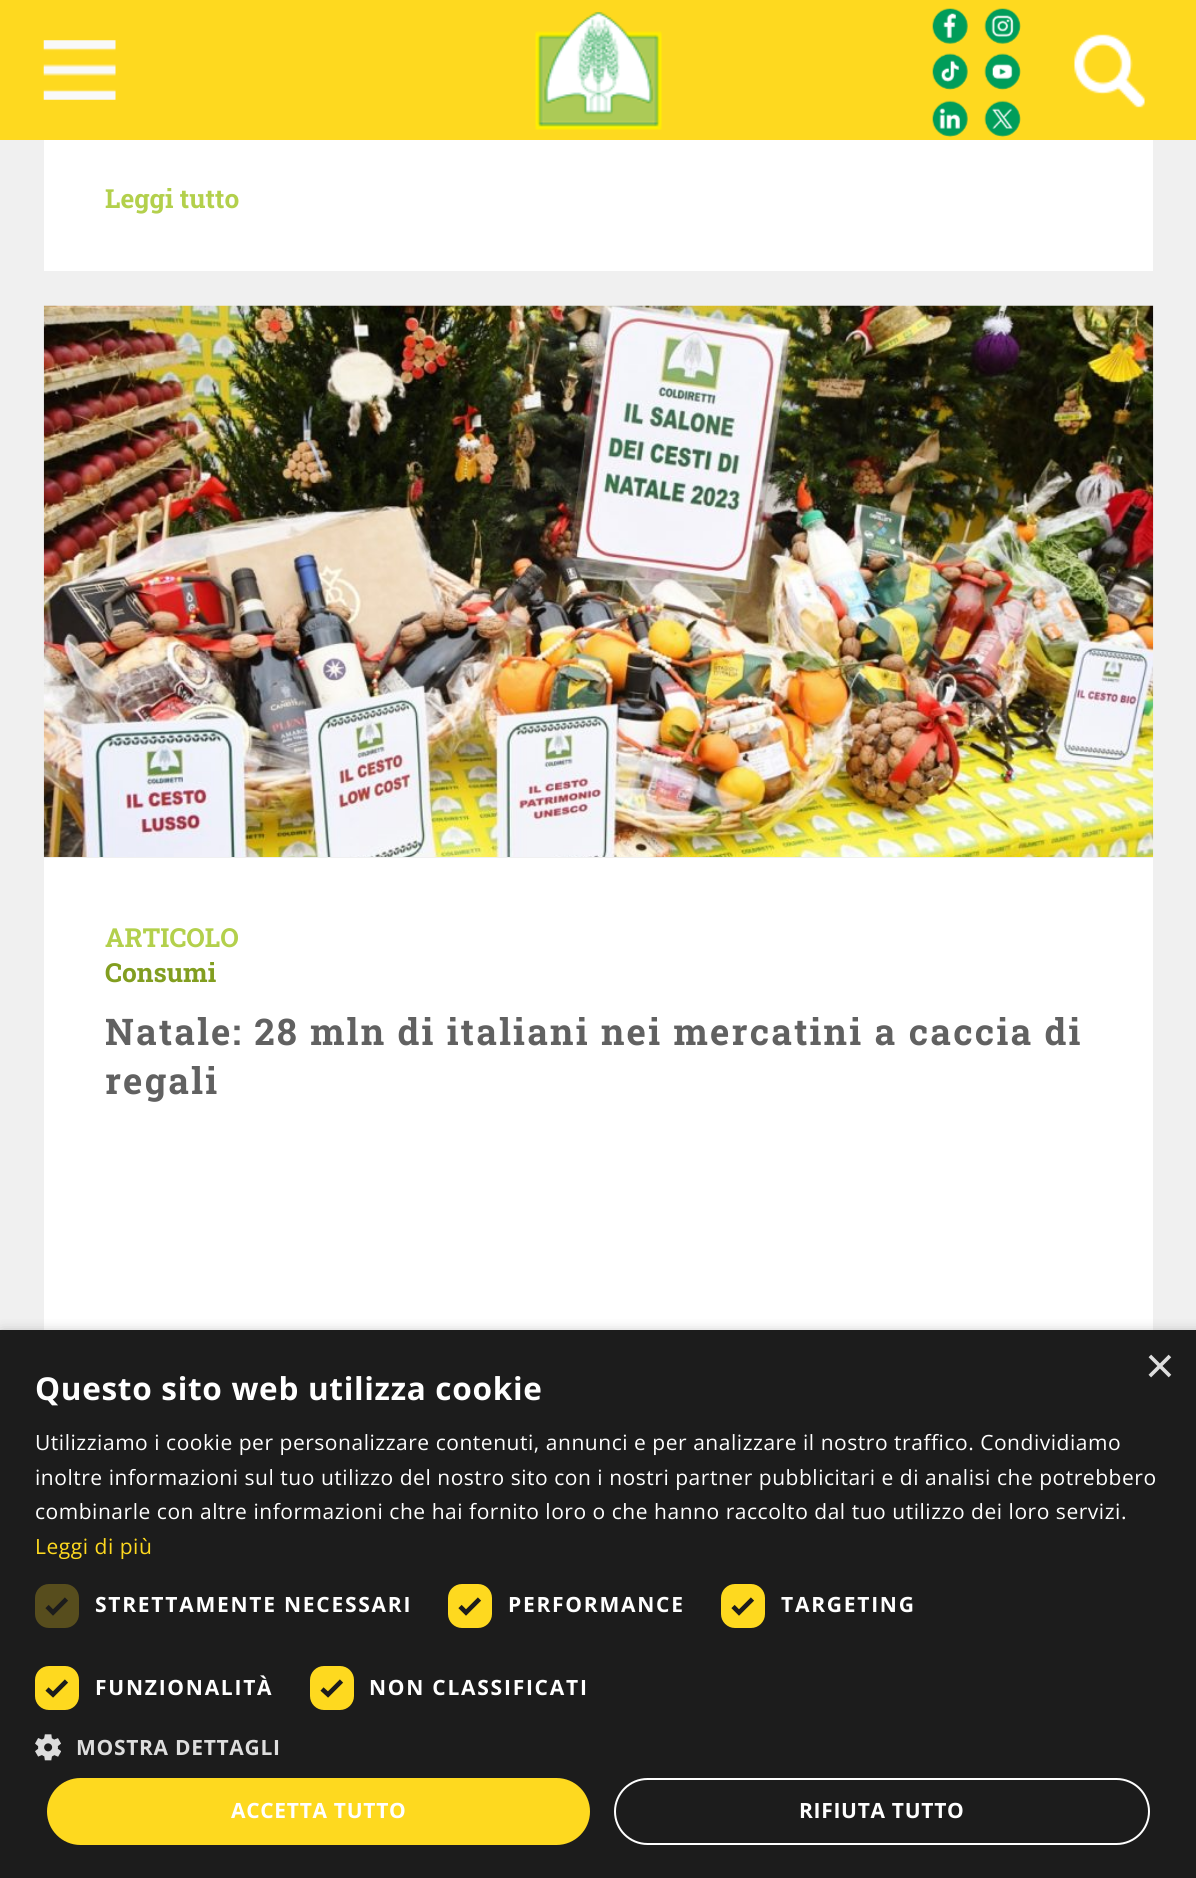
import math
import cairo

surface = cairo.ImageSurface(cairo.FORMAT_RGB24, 1196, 1878)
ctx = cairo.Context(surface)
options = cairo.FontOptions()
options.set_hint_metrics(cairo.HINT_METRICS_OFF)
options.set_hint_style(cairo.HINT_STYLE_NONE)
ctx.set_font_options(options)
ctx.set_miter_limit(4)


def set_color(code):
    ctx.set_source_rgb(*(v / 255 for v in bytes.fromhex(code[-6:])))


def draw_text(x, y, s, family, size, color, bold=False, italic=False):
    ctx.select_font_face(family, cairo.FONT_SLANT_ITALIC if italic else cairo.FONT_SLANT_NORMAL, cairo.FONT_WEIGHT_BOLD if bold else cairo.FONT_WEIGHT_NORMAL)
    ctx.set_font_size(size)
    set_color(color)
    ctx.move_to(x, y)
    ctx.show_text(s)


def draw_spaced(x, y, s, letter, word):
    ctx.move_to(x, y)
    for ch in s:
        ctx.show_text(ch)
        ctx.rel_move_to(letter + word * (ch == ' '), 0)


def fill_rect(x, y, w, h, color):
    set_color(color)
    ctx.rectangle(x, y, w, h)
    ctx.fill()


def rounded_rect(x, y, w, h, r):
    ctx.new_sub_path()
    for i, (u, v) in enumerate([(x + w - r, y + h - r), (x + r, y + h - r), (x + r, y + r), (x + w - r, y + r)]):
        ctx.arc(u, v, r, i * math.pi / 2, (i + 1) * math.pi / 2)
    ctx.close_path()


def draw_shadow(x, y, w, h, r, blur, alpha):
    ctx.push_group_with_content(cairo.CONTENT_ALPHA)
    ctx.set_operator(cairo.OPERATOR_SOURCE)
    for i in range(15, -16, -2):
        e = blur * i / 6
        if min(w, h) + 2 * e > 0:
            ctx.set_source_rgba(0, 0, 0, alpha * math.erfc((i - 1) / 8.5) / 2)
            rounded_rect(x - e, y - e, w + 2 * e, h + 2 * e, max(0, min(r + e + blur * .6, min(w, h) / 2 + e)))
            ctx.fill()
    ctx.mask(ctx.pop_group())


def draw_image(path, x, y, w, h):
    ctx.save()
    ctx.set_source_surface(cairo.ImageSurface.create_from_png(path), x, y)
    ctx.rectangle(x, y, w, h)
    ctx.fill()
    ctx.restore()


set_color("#f0f0f0")
ctx.paint()
fill_rect(0, 0, 1196, 140, "#fed91f")
draw_image("assets/img1.png", 43, 40, 73, 60)
draw_image("assets/img2.png", 535, 12, 127, 118)
draw_image("assets/img3.png", 932, 8, 36, 36)
draw_image("assets/img4.png", 984, 8, 37, 36)
draw_image("assets/img5.png", 932, 53, 36, 37)
draw_image("assets/img6.png", 984, 53, 37, 37)
draw_image("assets/img7.png", 932, 100, 36, 37)
draw_image("assets/img8.png", 984, 100, 37, 37)
draw_image("assets/img9.png", 1074, 34, 71, 74)
fill_rect(44, 140, 1109, 131, "#ffffff")
draw_text(105, 208, "Leggi tutto", "Roboto Slab", 26.25, "#b3d04c", bold=True)
draw_image("assets/img10.png", 43, 305, 1111, 552)
fill_rect(44, 858, 1109, 472, "#ffffff")
draw_text(105, 947, "ARTICOLO", "Roboto Slab", 26.25, "#b3d04c", bold=True)
draw_text(105, 982, "Consumi", "Roboto Slab", 26.25, "#829e20", bold=True)
ctx.set_font_size(36.75)
set_color("#616161")
draw_spaced(105, 1045, "Natale: 28 mln di italiani nei mercatini a caccia di", 2.2, 0)
draw_spaced(105, 1094, "regali", 2.2, 0)
set_color("#000000")
draw_shadow(2, 1334, 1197, 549, 0, 7, 0.35)
fill_rect(0, 1330, 1196, 548, "#1c1c1c")
draw_text(1145, 1383, "×", "Liberation Sans", 51, "#dddddd")
ctx.select_font_face("Open Sans", cairo.FONT_SLANT_NORMAL, cairo.FONT_WEIGHT_BOLD)
ctx.set_font_size(31.5)
set_color("#ffffff")
draw_spaced(35, 1400, "Questo sito web utilizza cookie", 0.7, 0)
ctx.select_font_face("Open Sans")
ctx.set_font_size(21)
draw_spaced(35, 1450, "Utilizziamo i cookie per personalizzare contenuti, annunci e per analizzare il nostro traffico. Condividiamo", 0.53, 0)
draw_spaced(35, 1485, "inoltre informazioni sul tuo utilizzo del nostro sito con i nostri partner pubblicitari e di analisi che potrebbero", 0.53, 0)
draw_spaced(35, 1519, "combinarle con altre informazioni che hai fornito loro o che hanno raccolto dal tuo utilizzo dei loro servizi.", 0.53, 0)
set_color("#fed91f")
draw_spaced(35, 1554, "Leggi di più", 0.53, 0)
set_color("#574d1d")
rounded_rect(35, 1584, 44, 44, 14)
ctx.fill()
ctx.new_path()
ctx.move_to(47, 1606.5)
ctx.line_to(53, 1612.5)
ctx.line_to(66.5, 1599)
set_color("#1c1c1c")
ctx.set_line_width(4.6)
ctx.stroke()
ctx.select_font_face("Open Sans", cairo.FONT_SLANT_NORMAL, cairo.FONT_WEIGHT_BOLD)
set_color("#ffffff")
draw_spaced(95, 1612, "STRETTAMENTE NECESSARI", 1.75, 0)
set_color("#fed91f")
rounded_rect(450, 1586, 40, 40, 12)
ctx.fill_preserve()
ctx.set_line_width(4)
ctx.stroke()
ctx.new_path()
ctx.move_to(460, 1606.5)
ctx.line_to(466, 1612.5)
ctx.line_to(479.5, 1599)
set_color("#1c1c1c")
ctx.set_line_width(4.6)
ctx.stroke()
set_color("#ffffff")
draw_spaced(508, 1612, "PERFORMANCE", 1.75, 0)
set_color("#fed91f")
rounded_rect(723, 1586, 40, 40, 12)
ctx.fill_preserve()
ctx.set_line_width(4)
ctx.stroke()
ctx.new_path()
ctx.move_to(733, 1606.5)
ctx.line_to(739, 1612.5)
ctx.line_to(752.5, 1599)
set_color("#1c1c1c")
ctx.set_line_width(4.6)
ctx.stroke()
set_color("#ffffff")
draw_spaced(781, 1612, "TARGETING", 1.75, 0)
set_color("#fed91f")
rounded_rect(37, 1668, 40, 40, 12)
ctx.fill_preserve()
ctx.set_line_width(4)
ctx.stroke()
ctx.new_path()
ctx.move_to(47, 1689)
ctx.line_to(53, 1694.5)
ctx.line_to(66.5, 1681)
set_color("#1c1c1c")
ctx.set_line_width(4.6)
ctx.stroke()
set_color("#ffffff")
draw_spaced(95, 1695, "FUNZIONALITÀ", 1.75, 0)
set_color("#fed91f")
rounded_rect(312, 1668, 40, 40, 12)
ctx.fill_preserve()
ctx.set_line_width(4)
ctx.stroke()
ctx.new_path()
ctx.move_to(322, 1689)
ctx.line_to(328, 1694.5)
ctx.line_to(341.5, 1681)
set_color("#1c1c1c")
ctx.set_line_width(4.6)
ctx.stroke()
set_color("#ffffff")
draw_spaced(369, 1695, "NON CLASSIFICATI", 1.75, 0)
draw_image("assets/img11.png", 35, 1734, 26, 27)
set_color("#dddddd")
draw_spaced(76, 1755, "MOSTRA DETTAGLI", 0.7, 0)
set_color("#fed91f")
rounded_rect(47, 1778, 543, 67, 33.5)
ctx.fill()
set_color("#ffffff")
draw_spaced(231, 1818, "ACCETTA TUTTO", 0.7, 0)
rounded_rect(615, 1779, 534, 65, 32.5)
ctx.set_line_width(2)
ctx.stroke()
draw_spaced(799, 1818, "RIFIUTA TUTTO", 0.7, 0)
surface.write_to_png("output.png")
